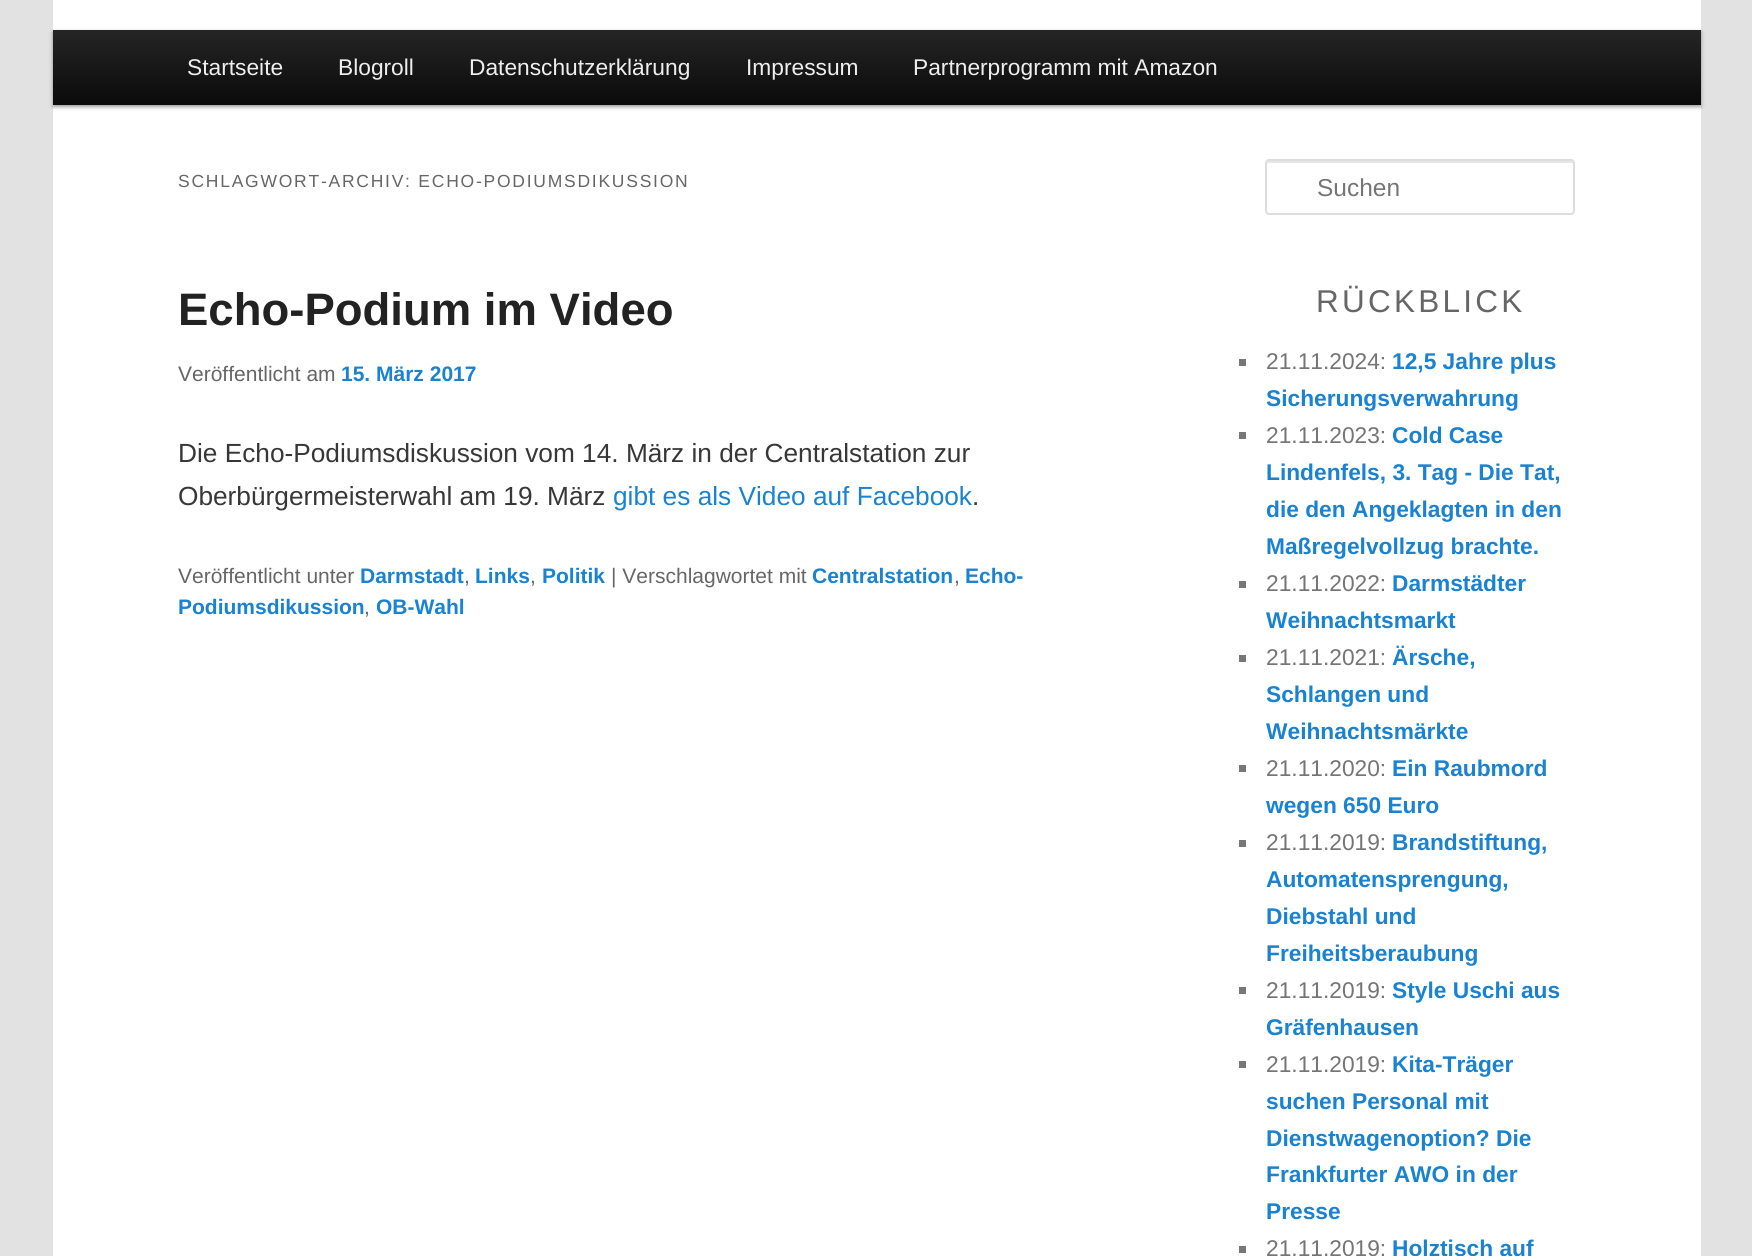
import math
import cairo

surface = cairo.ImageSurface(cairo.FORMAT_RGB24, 1752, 1256)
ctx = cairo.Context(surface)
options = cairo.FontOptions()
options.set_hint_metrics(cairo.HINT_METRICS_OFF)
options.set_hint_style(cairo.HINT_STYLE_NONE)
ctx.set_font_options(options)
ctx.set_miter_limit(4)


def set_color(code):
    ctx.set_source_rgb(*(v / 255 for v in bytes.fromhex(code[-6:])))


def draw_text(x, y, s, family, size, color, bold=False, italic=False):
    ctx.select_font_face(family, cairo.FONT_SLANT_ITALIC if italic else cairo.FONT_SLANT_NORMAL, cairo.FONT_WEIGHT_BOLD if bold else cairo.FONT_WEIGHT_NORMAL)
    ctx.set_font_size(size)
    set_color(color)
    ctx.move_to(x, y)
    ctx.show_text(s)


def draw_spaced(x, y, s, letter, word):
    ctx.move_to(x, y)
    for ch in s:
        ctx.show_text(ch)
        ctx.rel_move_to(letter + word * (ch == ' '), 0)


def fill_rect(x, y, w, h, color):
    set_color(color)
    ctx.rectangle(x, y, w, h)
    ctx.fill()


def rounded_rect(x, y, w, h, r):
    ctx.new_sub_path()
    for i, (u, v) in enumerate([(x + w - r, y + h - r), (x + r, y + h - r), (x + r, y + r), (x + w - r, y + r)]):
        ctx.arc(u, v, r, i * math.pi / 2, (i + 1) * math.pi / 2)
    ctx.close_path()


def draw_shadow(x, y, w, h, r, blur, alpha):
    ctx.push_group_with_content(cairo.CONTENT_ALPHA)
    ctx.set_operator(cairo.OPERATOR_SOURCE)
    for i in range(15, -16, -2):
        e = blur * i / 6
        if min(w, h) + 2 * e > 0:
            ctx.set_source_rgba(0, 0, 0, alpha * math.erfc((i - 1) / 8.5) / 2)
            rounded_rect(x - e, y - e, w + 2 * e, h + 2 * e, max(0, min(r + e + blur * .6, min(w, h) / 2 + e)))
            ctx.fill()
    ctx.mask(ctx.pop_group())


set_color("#e2e2e2")
ctx.paint()
fill_rect(53, 0, 1648, 1256, "#ffffff")
set_color("#000000")
draw_shadow(53, 32, 1648, 75, 0, 2, 0.4)
gradient = cairo.LinearGradient(877, 30, 877, 105)
gradient.add_color_stop_rgba(0, 0.145, 0.145, 0.145, 1)
gradient.add_color_stop_rgba(1, 0.039, 0.039, 0.039, 1)
ctx.set_source(gradient)
ctx.rectangle(53, 30, 1648, 75)
ctx.fill()
draw_text(187, 75, "Startseite", "Liberation Sans", 22.75, "#eeeeee")
draw_text(338, 75, "Blogroll", "Liberation Sans", 22.75, "#eeeeee")
draw_text(469, 75, "Datenschutzerklärung", "Liberation Sans", 22.75, "#eeeeee")
draw_text(746, 75, "Impressum", "Liberation Sans", 22.75, "#eeeeee")
draw_text(913, 75, "Partnerprogramm mit Amazon", "Liberation Sans", 22.75, "#eeeeee")
ctx.set_font_size(17.5)
set_color("#666666")
draw_spaced(178, 187, "SCHLAGWORT-ARCHIV: ECHO-PODIUMSDIKUSSION", 1.75, 0)
draw_text(178, 325, "Echo-Podium im Video", "Liberation Sans", 45.5, "#222222", bold=True)
draw_text(178, 381, "Veröffentlicht am", "Liberation Sans", 21, "#666666")
draw_text(341, 381, "15. März 2017", "Liberation Sans", 21, "#1982d1", bold=True)
draw_text(178, 462, "Die Echo-Podiumsdiskussion vom 14. März in der Centralstation zur", "Liberation Sans", 26.25, "#373737")
draw_text(178, 505, "Oberbürgermeisterwahl am 19. März", "Liberation Sans", 26.25, "#373737")
draw_text(613, 505, "gibt es als Video auf Facebook", "Liberation Sans", 26.25, "#1982d1")
draw_text(972, 505, ".", "Liberation Sans", 26.25, "#373737")
draw_text(178, 583, "Veröffentlicht unter", "Liberation Sans", 21, "#666666")
draw_text(360, 583, "Darmstadt", "Liberation Sans", 21, "#1982d1", bold=True)
draw_text(464, 583, ",", "Liberation Sans", 21, "#666666")
draw_text(475, 583, "Links", "Liberation Sans", 21, "#1982d1", bold=True)
draw_text(530, 583, ",", "Liberation Sans", 21, "#666666")
draw_text(542, 583, "Politik", "Liberation Sans", 21, "#1982d1", bold=True)
draw_text(611, 583, "| Verschlagwortet mit", "Liberation Sans", 21, "#666666")
draw_text(812, 583, "Centralstation", "Liberation Sans", 21, "#1982d1", bold=True)
draw_text(954, 583, ",", "Liberation Sans", 21, "#666666")
draw_text(965, 583, "Echo-", "Liberation Sans", 21, "#1982d1", bold=True)
draw_text(178, 614, "Podiumsdikussion", "Liberation Sans", 21, "#1982d1", bold=True)
draw_text(364, 614, ",", "Liberation Sans", 21, "#666666")
draw_text(376, 614, "OB-Wahl", "Liberation Sans", 21, "#1982d1", bold=True)
set_color("#e6e6e6")
ctx.new_path()
ctx.move_to(1269, 163)
ctx.line_to(1572, 163)
ctx.line_to(1573, 164)
ctx.curve_to(1573, 163, 1573, 161, 1571, 161)
ctx.line_to(1268, 161)
ctx.line_to(1267, 164)
ctx.close_path()
ctx.fill()
rounded_rect(1266, 160, 308, 54, 3)
set_color("#dddddd")
ctx.stroke()
draw_text(1317, 196, "Suchen", "Liberation Sans", 24.5, "#757575")
ctx.set_font_size(31.5)
set_color("#666666")
draw_spaced(1316, 312, "RÜCKBLICK", 3.25, 0)
fill_rect(1239, 359, 7, 7, "#777777")
draw_text(1266, 369, "21.11.2024:", "Liberation Sans", 22.75, "#757575")
draw_text(1392, 369, "12,5 Jahre plus", "Liberation Sans", 22.75, "#1982d1", bold=True)
draw_text(1266, 406, "Sicherungsverwahrung", "Liberation Sans", 22.75, "#1982d1", bold=True)
fill_rect(1239, 432, 7, 7, "#777777")
draw_text(1266, 443, "21.11.2023:", "Liberation Sans", 22.75, "#757575")
draw_text(1392, 443, "Cold Case", "Liberation Sans", 22.75, "#1982d1", bold=True)
draw_text(1266, 480, "Lindenfels, 3. Tag - Die Tat,", "Liberation Sans", 22.75, "#1982d1", bold=True)
draw_text(1266, 517, "die den Angeklagten in den", "Liberation Sans", 22.75, "#1982d1", bold=True)
draw_text(1266, 554, "Maßregelvollzug brachte.", "Liberation Sans", 22.75, "#1982d1", bold=True)
fill_rect(1239, 581, 7, 7, "#777777")
draw_text(1266, 591, "21.11.2022:", "Liberation Sans", 22.75, "#757575")
draw_text(1392, 591, "Darmstädter", "Liberation Sans", 22.75, "#1982d1", bold=True)
draw_text(1266, 628, "Weihnachtsmarkt", "Liberation Sans", 22.75, "#1982d1", bold=True)
fill_rect(1239, 655, 7, 7, "#777777")
draw_text(1266, 665, "21.11.2021:", "Liberation Sans", 22.75, "#757575")
draw_text(1392, 665, "Ärsche,", "Liberation Sans", 22.75, "#1982d1", bold=True)
draw_text(1266, 702, "Schlangen und", "Liberation Sans", 22.75, "#1982d1", bold=True)
draw_text(1266, 739, "Weihnachtsmärkte", "Liberation Sans", 22.75, "#1982d1", bold=True)
fill_rect(1239, 765, 7, 7, "#777777")
draw_text(1266, 776, "21.11.2020:", "Liberation Sans", 22.75, "#757575")
draw_text(1392, 776, "Ein Raubmord", "Liberation Sans", 22.75, "#1982d1", bold=True)
draw_text(1266, 813, "wegen 650 Euro", "Liberation Sans", 22.75, "#1982d1", bold=True)
fill_rect(1239, 840, 7, 7, "#777777")
draw_text(1266, 850, "21.11.2019:", "Liberation Sans", 22.75, "#757575")
draw_text(1392, 850, "Brandstiftung,", "Liberation Sans", 22.75, "#1982d1", bold=True)
draw_text(1266, 887, "Automatensprengung,", "Liberation Sans", 22.75, "#1982d1", bold=True)
draw_text(1266, 924, "Diebstahl und", "Liberation Sans", 22.75, "#1982d1", bold=True)
draw_text(1266, 961, "Freiheitsberaubung", "Liberation Sans", 22.75, "#1982d1", bold=True)
fill_rect(1239, 987, 7, 7, "#777777")
draw_text(1266, 998, "21.11.2019:", "Liberation Sans", 22.75, "#757575")
draw_text(1392, 998, "Style Uschi aus", "Liberation Sans", 22.75, "#1982d1", bold=True)
draw_text(1266, 1035, "Gräfenhausen", "Liberation Sans", 22.75, "#1982d1", bold=True)
fill_rect(1239, 1061, 7, 7, "#777777")
draw_text(1266, 1072, "21.11.2019:", "Liberation Sans", 22.75, "#757575")
draw_text(1392, 1072, "Kita-Träger", "Liberation Sans", 22.75, "#1982d1", bold=True)
draw_text(1266, 1109, "suchen Personal mit", "Liberation Sans", 22.75, "#1982d1", bold=True)
draw_text(1266, 1146, "Dienstwagenoption? Die", "Liberation Sans", 22.75, "#1982d1", bold=True)
draw_text(1266, 1182, "Frankfurter AWO in der", "Liberation Sans", 22.75, "#1982d1", bold=True)
draw_text(1266, 1219, "Presse", "Liberation Sans", 22.75, "#1982d1", bold=True)
fill_rect(1239, 1246, 7, 7, "#777777")
draw_text(1266, 1256, "21.11.2019:", "Liberation Sans", 22.75, "#757575")
draw_text(1392, 1256, "Holztisch auf", "Liberation Sans", 22.75, "#1982d1", bold=True)
surface.write_to_png("output.png")
